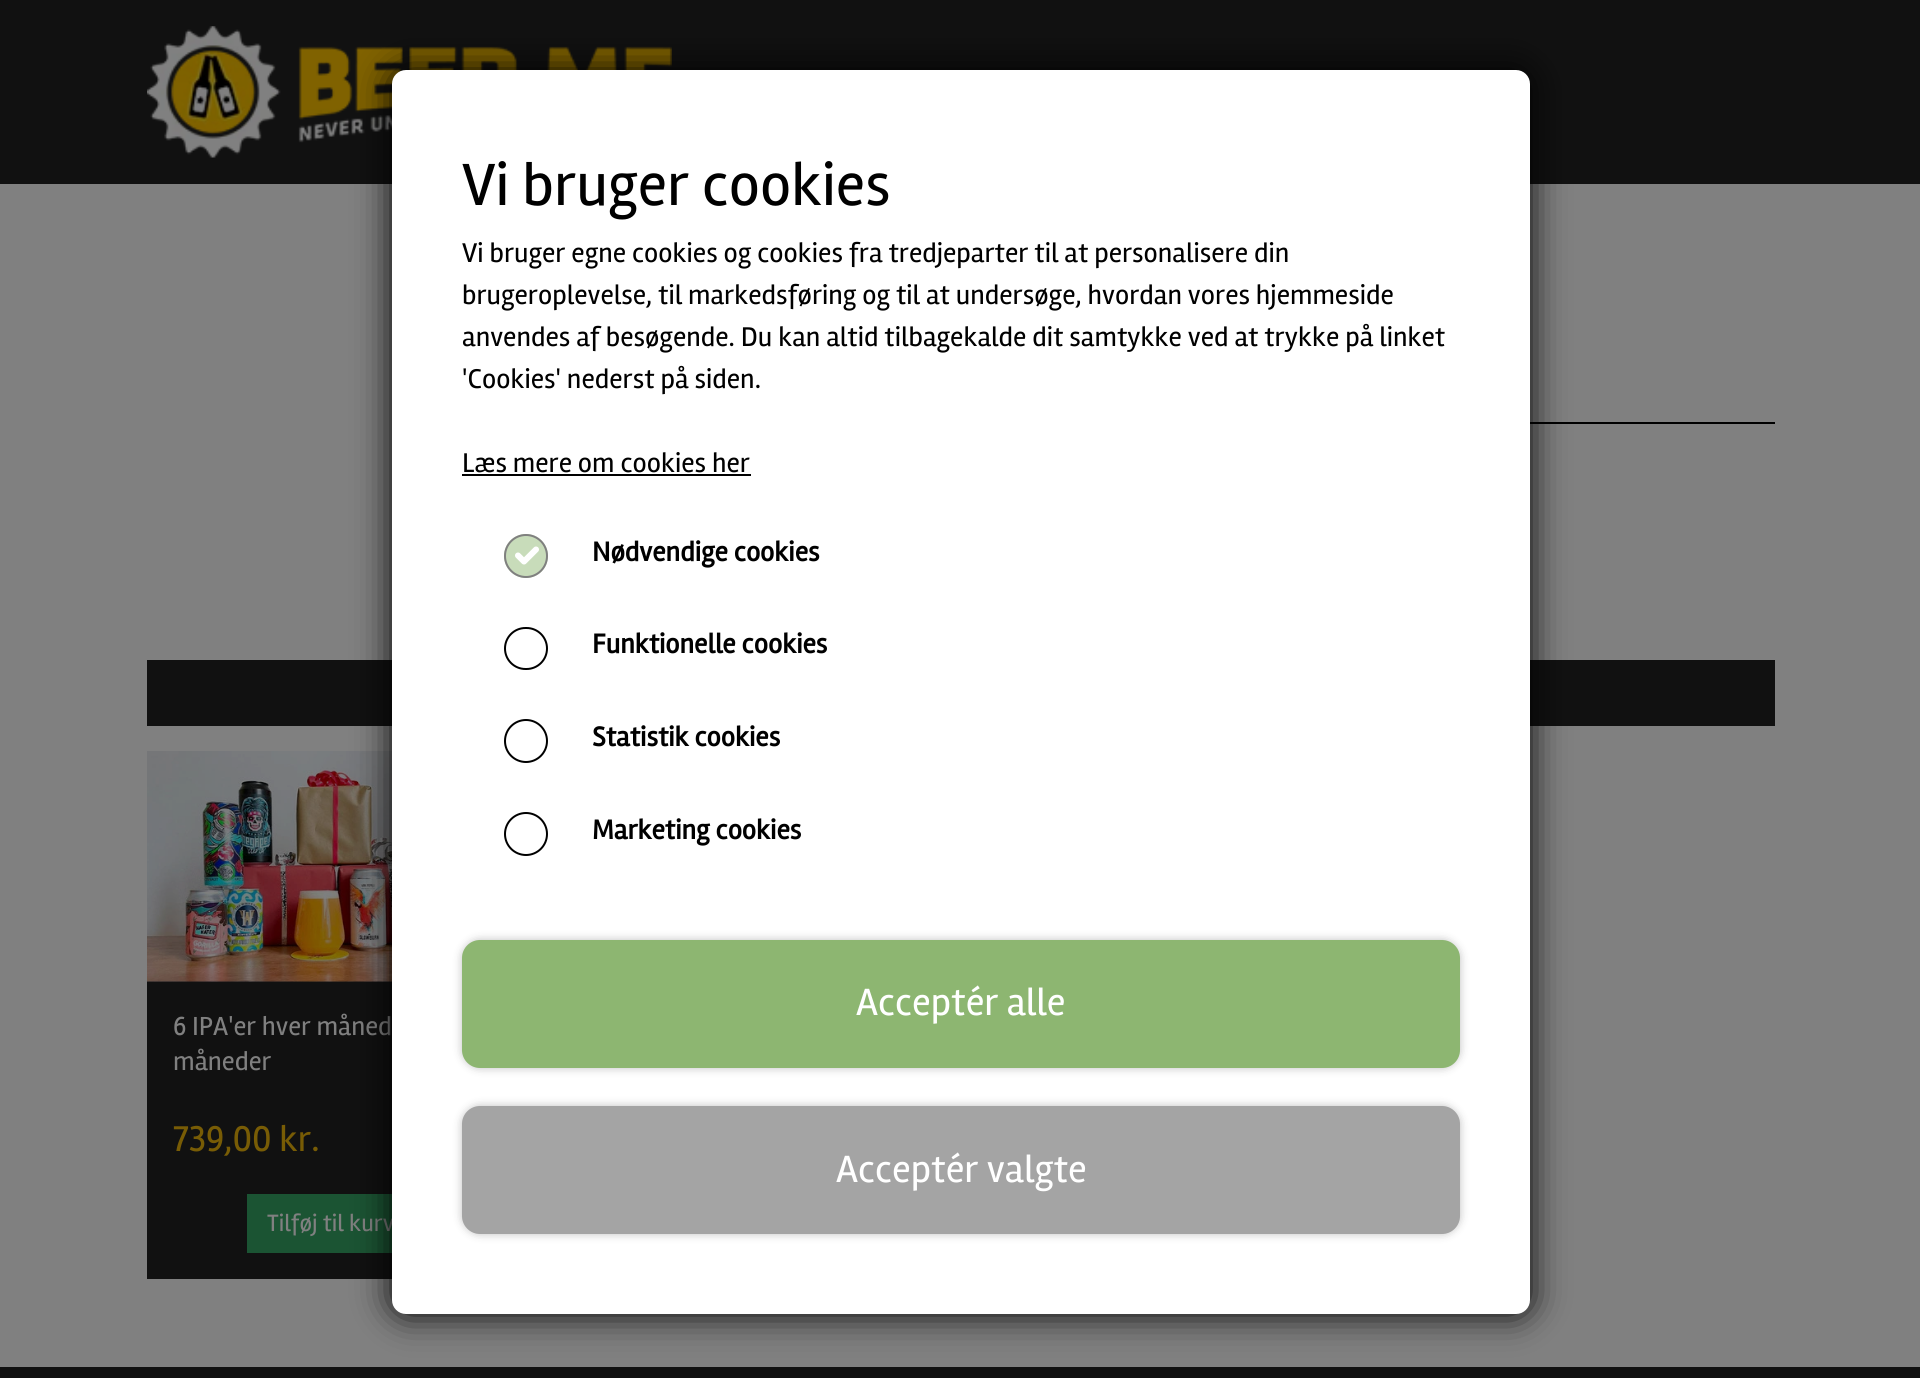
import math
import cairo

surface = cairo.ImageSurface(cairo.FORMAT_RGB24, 1920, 1378)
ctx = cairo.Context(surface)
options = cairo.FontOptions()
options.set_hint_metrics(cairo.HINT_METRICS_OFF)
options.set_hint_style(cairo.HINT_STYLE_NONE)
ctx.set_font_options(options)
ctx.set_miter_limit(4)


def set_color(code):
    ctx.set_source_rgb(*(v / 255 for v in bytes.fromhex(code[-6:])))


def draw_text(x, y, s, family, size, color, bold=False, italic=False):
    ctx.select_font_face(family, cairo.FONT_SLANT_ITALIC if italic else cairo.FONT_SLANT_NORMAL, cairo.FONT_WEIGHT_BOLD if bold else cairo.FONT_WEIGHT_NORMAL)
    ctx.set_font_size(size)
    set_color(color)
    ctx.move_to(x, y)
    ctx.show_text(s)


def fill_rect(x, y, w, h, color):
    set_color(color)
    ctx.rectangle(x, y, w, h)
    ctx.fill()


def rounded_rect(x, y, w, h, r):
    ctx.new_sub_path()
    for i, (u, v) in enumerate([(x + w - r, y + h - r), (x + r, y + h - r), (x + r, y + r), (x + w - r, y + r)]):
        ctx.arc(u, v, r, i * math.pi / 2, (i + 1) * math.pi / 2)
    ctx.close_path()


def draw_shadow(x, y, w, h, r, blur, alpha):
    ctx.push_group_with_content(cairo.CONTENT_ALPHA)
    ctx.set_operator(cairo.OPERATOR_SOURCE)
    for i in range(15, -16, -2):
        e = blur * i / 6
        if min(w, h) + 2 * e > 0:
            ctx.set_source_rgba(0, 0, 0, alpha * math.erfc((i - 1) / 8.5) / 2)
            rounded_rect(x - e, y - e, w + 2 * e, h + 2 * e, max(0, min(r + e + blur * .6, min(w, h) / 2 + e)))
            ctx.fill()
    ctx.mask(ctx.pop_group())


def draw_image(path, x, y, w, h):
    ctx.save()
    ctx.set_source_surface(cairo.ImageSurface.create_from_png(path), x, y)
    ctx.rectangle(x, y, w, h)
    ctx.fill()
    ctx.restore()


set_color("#111111")
ctx.paint()
draw_image("assets/img1.png", 147, 26, 525, 132)
fill_rect(0, 184, 1920, 1183, "#808080")
fill_rect(1530, 422, 245, 2, "#000000")
fill_rect(147, 660, 1628, 66, "#111111")
fill_rect(147, 981, 245, 1, "#0d141b")
draw_image("assets/img2.png", 147, 750, 245, 232)
fill_rect(147, 982, 245, 297, "#111111")
draw_text(173, 1035, "6 IPA'er hver måned", "Rambla", 27, "#808080")
draw_text(173, 1070, "måneder", "Rambla", 27, "#808080")
draw_text(173, 1151, "739,00 kr.", "Rambla", 37, "#785c05")
fill_rect(247, 1194, 145, 59, "#1b5433")
draw_text(267, 1231, "Tilføj til kurv", "Rambla", 24.5, "#808080")
set_color("#000000")
draw_shadow(392, 70, 1138, 1244, 14, 17.5, 1)
set_color("#ffffff")
rounded_rect(392, 70, 1138, 1244, 14)
ctx.fill()
draw_text(462, 205, "Vi bruger cookies", "Rambla", 61.5, "#000000")
draw_text(462, 262, "Vi bruger egne cookies og cookies fra tredjeparter til at personalisere din", "Rambla", 28, "#000000")
draw_text(462, 304, "brugeroplevelse, til markedsføring og til at undersøge, hvordan vores hjemmeside", "Rambla", 28, "#000000")
draw_text(462, 346, "anvendes af besøgende. Du kan altid tilbagekalde dit samtykke ved at trykke på linket", "Rambla", 28, "#000000")
draw_text(462, 388, "'Cookies' nederst på siden.", "Rambla", 28, "#000000")
draw_text(462, 472, "Læs mere om cookies her", "Rambla", 28, "#000000")
fill_rect(462, 474, 289, 2, "#000000")
set_color("#c8dcba")
ctx.new_path()
ctx.arc(526, 556, 22, 0, 2 * math.pi)
ctx.fill()
ctx.new_path()
ctx.move_to(518, 555.5)
ctx.line_to(524, 561.5)
ctx.line_to(536, 549.5)
set_color("#ffffff")
ctx.set_line_width(6)
ctx.set_line_cap(cairo.LINE_CAP_ROUND)
ctx.set_line_join(cairo.LINE_JOIN_ROUND)
ctx.stroke()
ctx.arc(526, 556, 21, 0, 2 * math.pi)
set_color("#808080")
ctx.set_line_width(2)
ctx.set_line_cap(cairo.LINE_CAP_BUTT)
ctx.set_line_join(cairo.LINE_JOIN_MITER)
ctx.stroke()
draw_text(592, 561, "Nødvendige cookies", "Rambla", 28, "#000000", bold=True)
rounded_rect(505, 628, 42, 41, 20.5)
ctx.stroke()
draw_text(592, 653, "Funktionelle cookies", "Rambla", 28, "#000000", bold=True)
ctx.new_path()
ctx.arc(526, 741, 21, 0, 2 * math.pi)
ctx.stroke()
draw_text(592, 746, "Statistik cookies", "Rambla", 28, "#000000", bold=True)
ctx.new_path()
ctx.arc(526, 834, 21, 0, 2 * math.pi)
ctx.stroke()
draw_text(592, 839, "Marketing cookies", "Rambla", 28, "#000000", bold=True)
set_color("#000000")
draw_shadow(462, 940, 998, 128, 18, 4.5, 0.25)
set_color("#8db671")
rounded_rect(462, 940, 998, 128, 18)
ctx.fill()
draw_text(856, 1015, "Acceptér alle", "Rambla", 39.25, "#ffffff")
set_color("#000000")
draw_shadow(462, 1106, 998, 128, 18, 4.5, 0.25)
set_color("#a4a4a4")
rounded_rect(462, 1106, 998, 128, 18)
ctx.fill()
draw_text(836, 1182, "Acceptér valgte", "Rambla", 39.25, "#ffffff")
surface.write_to_png("output.png")
